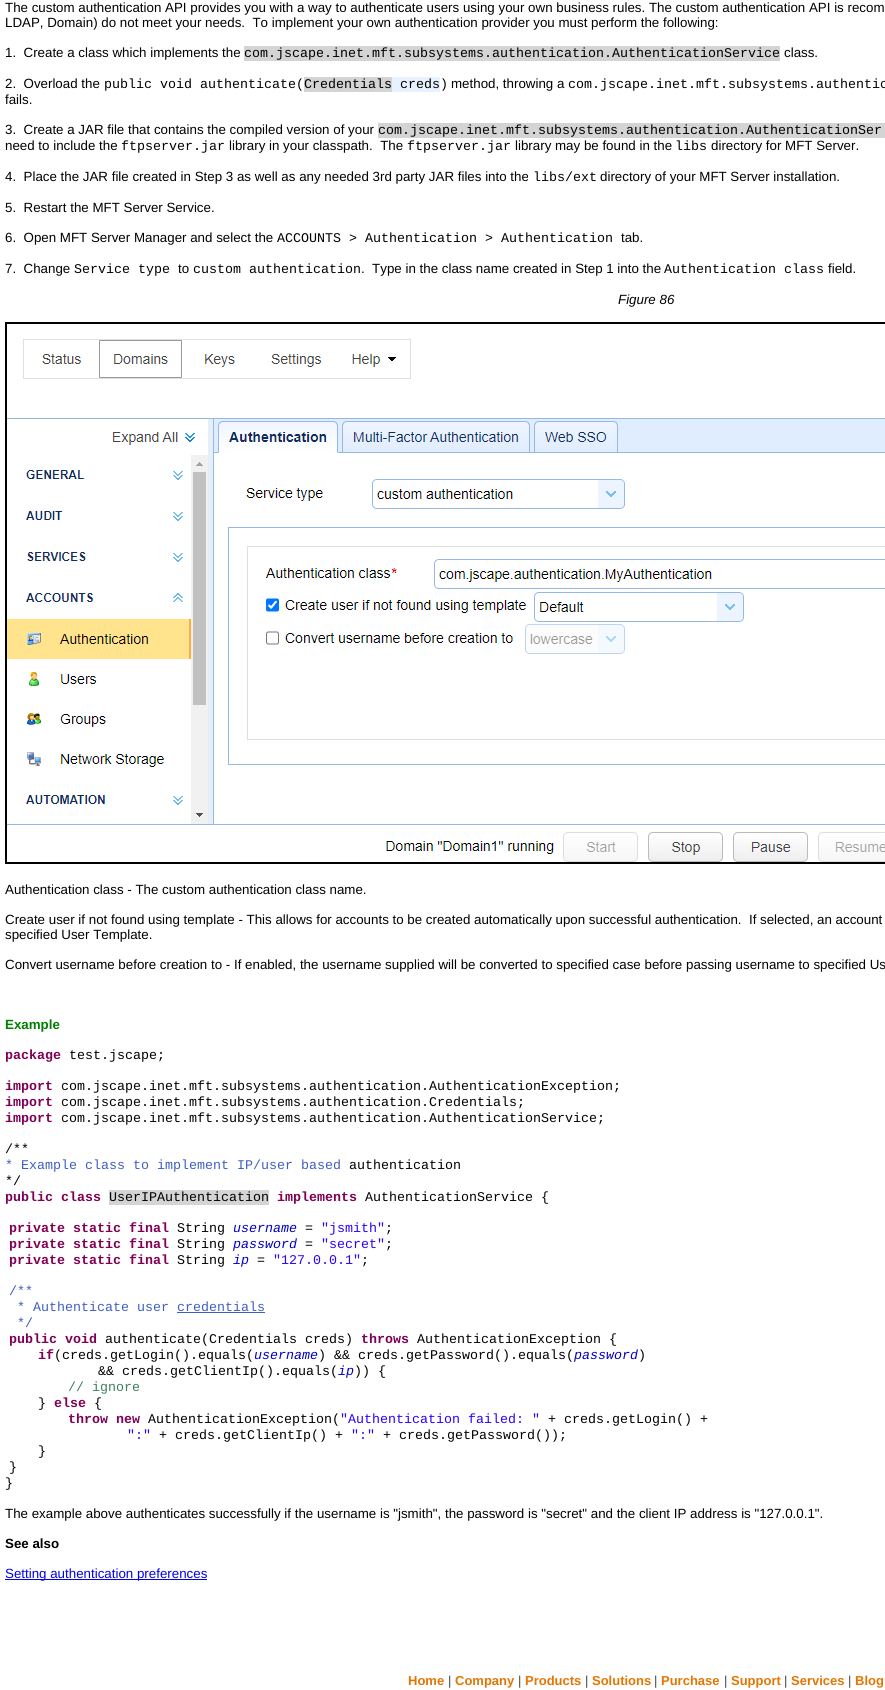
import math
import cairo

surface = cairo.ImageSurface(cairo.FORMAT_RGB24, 885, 1690)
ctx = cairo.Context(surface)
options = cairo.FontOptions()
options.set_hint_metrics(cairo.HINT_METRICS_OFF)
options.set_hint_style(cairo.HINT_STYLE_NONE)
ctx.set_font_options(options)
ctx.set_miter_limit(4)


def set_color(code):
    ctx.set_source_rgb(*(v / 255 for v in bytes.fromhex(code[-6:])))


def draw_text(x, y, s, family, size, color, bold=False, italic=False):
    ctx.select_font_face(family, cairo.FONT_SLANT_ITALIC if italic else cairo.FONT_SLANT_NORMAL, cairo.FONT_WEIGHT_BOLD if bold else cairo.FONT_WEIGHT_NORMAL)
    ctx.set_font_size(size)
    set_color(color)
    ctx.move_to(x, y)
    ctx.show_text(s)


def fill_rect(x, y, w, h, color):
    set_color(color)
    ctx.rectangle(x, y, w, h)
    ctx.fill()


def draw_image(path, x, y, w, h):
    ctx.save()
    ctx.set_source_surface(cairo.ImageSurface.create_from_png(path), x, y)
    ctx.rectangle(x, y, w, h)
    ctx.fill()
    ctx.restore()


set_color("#ffffff")
ctx.paint()
draw_text(5, 12, "The custom authentication API provides you with a way to authenticate users using your own business rules. The custom authentication API is recom", "Liberation Sans", 13.33, "#000000")
draw_text(5, 27, "LDAP, Domain) do not meet your needs.  To implement your own authentication provider you must perform the following:", "Liberation Sans", 13.33, "#000000")
draw_text(5, 57, "1.  Create a class which implements the", "Liberation Sans", 13.33, "#000000")
fill_rect(244, 46, 536, 15, "#d4d4d4")
draw_text(244, 57, "com.jscape.inet.mft.subsystems.authentication.AuthenticationService", "Liberation Mono", 13.33, "#000000")
draw_text(784, 57, "class.", "Liberation Sans", 13.33, "#000000")
draw_text(5, 88, "2.  Overload the", "Liberation Sans", 13.33, "#000000")
draw_text(104, 88, "public void authenticate(", "Liberation Mono", 13.33, "#000000")
fill_rect(304, 77, 88, 15, "#d4d4d4")
draw_text(304, 88, "Credentials", "Liberation Mono", 13.33, "#000000")
fill_rect(392, 77, 48, 15, "#e8f2fe")
draw_text(400, 88, "creds)", "Liberation Mono", 13.33, "#000000")
draw_text(451, 88, "method, throwing a", "Liberation Sans", 13.33, "#000000")
draw_text(568, 88, "com.jscape.inet.mft.subsystems.authentic", "Liberation Mono", 13.33, "#000000")
draw_text(5, 104, "fails.", "Liberation Sans", 13.33, "#000000")
draw_text(5, 134, "3.  Create a JAR file that contains the compiled version of your", "Liberation Sans", 13.33, "#000000")
fill_rect(378, 123, 507, 15, "#d4d4d4")
draw_text(378, 134, "com.jscape.inet.mft.subsystems.authentication.AuthenticationSer", "Liberation Mono", 13.33, "#000000")
draw_text(5, 150, "need to include the", "Liberation Sans", 13.33, "#000000")
draw_text(121, 150, "ftpserver.jar", "Liberation Mono", 13.33, "#000000")
draw_text(229, 150, "library in your classpath.  The", "Liberation Sans", 13.33, "#000000")
draw_text(407, 150, "ftpserver.jar", "Liberation Mono", 13.33, "#000000")
draw_text(515, 150, "library may be found in the", "Liberation Sans", 13.33, "#000000")
draw_text(675, 150, "libs", "Liberation Mono", 13.33, "#000000")
draw_text(711, 150, "directory for MFT Server.", "Liberation Sans", 13.33, "#000000")
draw_text(5, 181, "4.  Place the JAR file created in Step 3 as well as any needed 3rd party JAR files into the", "Liberation Sans", 13.33, "#000000")
draw_text(533, 181, "libs/ext", "Liberation Mono", 13.33, "#000000")
draw_text(600, 181, "directory of your MFT Server installation.", "Liberation Sans", 13.33, "#000000")
draw_text(5, 212, "5.  Restart the MFT Server Service.", "Liberation Sans", 13.33, "#000000")
draw_text(5, 242, "6.  Open MFT Server Manager and select the", "Liberation Sans", 13.33, "#000000")
draw_text(277, 242, "ACCOUNTS > Authentication > Authentication", "Liberation Mono", 13.33, "#000000")
draw_text(621, 242, "tab.", "Liberation Sans", 13.33, "#000000")
draw_text(5, 273, "7.  Change", "Liberation Sans", 13.33, "#000000")
draw_text(74, 273, "Service type", "Liberation Mono", 13.33, "#000000")
draw_text(178, 273, "to", "Liberation Sans", 13.33, "#000000")
draw_text(193, 273, "custom authentication", "Liberation Mono", 13.33, "#000000")
draw_text(361, 273, ".  Type in the class name created in Step 1 into the", "Liberation Sans", 13.33, "#000000")
draw_text(664, 273, "Authentication class", "Liberation Mono", 13.33, "#000000")
draw_text(828, 273, "field.", "Liberation Sans", 13.33, "#000000")
draw_text(618, 304, "Figure 86", "Liberation Sans", 13.33, "#000000", italic=True)
draw_image("assets/img1.png", 5, 322, 880, 542)
draw_text(5, 894, "Authentication class - The custom authentication class name.", "Liberation Sans", 13.33, "#000000")
draw_text(5, 924, "Create user if not found using template - This allows for accounts to be created automatically upon successful authentication.  If selected, an account", "Liberation Sans", 13.33, "#000000")
draw_text(5, 939, "specified User Template.", "Liberation Sans", 13.33, "#000000")
draw_text(5, 969, "Convert username before creation to - If enabled, the username supplied will be converted to specified case before passing username to specified Us", "Liberation Sans", 13.33, "#000000")
draw_text(5, 1029, "Example", "Liberation Sans", 13.33, "#008000", bold=True)
draw_text(5, 1059, "package", "Liberation Mono", 13.33, "#7f0055", bold=True)
draw_text(69, 1059, "test.jscape;", "Liberation Mono", 13.33, "#000000")
draw_text(5, 1090, "import", "Liberation Mono", 13.33, "#7f0055", bold=True)
draw_text(61, 1090, "com.jscape.inet.mft.subsystems.authentication.AuthenticationException;", "Liberation Mono", 13.33, "#000000")
draw_text(5, 1106, "import", "Liberation Mono", 13.33, "#7f0055", bold=True)
draw_text(61, 1106, "com.jscape.inet.mft.subsystems.authentication.Credentials;", "Liberation Mono", 13.33, "#000000")
draw_text(5, 1122, "import", "Liberation Mono", 13.33, "#7f0055", bold=True)
draw_text(61, 1122, "com.jscape.inet.mft.subsystems.authentication.AuthenticationService;", "Liberation Mono", 13.33, "#000000")
draw_text(5, 1153, "/**", "Liberation Mono", 13.33, "#000000")
draw_text(5, 1169, "* Example class to implement IP/user based", "Liberation Mono", 13.33, "#3f5fbf")
draw_text(349, 1169, "authentication", "Liberation Mono", 13.33, "#000000")
draw_text(5, 1185, "*/", "Liberation Mono", 13.33, "#000000")
draw_text(5, 1201, "public class", "Liberation Mono", 13.33, "#7f0055", bold=True)
fill_rect(109, 1190, 160, 15, "#d4d4d4")
draw_text(109, 1201, "UserIPAuthentication", "Liberation Mono", 13.33, "#000000")
draw_text(277, 1201, "implements", "Liberation Mono", 13.33, "#7f0055", bold=True)
draw_text(365, 1201, "AuthenticationService {", "Liberation Mono", 13.33, "#000000")
draw_text(9, 1232, "private static final", "Liberation Mono", 13.33, "#7f0055", bold=True)
draw_text(177, 1232, "String", "Liberation Mono", 13.33, "#000000")
draw_text(233, 1232, "username", "Liberation Mono", 13.33, "#0000c0", italic=True)
draw_text(305, 1232, "=", "Liberation Mono", 13.33, "#000000")
draw_text(321, 1232, "\"jsmith\"", "Liberation Mono", 13.33, "#2a00ff")
draw_text(385, 1232, ";", "Liberation Mono", 13.33, "#000000")
draw_text(9, 1248, "private static final", "Liberation Mono", 13.33, "#7f0055", bold=True)
draw_text(177, 1248, "String", "Liberation Mono", 13.33, "#000000")
draw_text(233, 1248, "password", "Liberation Mono", 13.33, "#0000c0", italic=True)
draw_text(305, 1248, "=", "Liberation Mono", 13.33, "#000000")
draw_text(321, 1248, "\"secret\"", "Liberation Mono", 13.33, "#2a00ff")
draw_text(385, 1248, ";", "Liberation Mono", 13.33, "#000000")
draw_text(9, 1264, "private static final", "Liberation Mono", 13.33, "#7f0055", bold=True)
draw_text(177, 1264, "String", "Liberation Mono", 13.33, "#000000")
draw_text(233, 1264, "ip", "Liberation Mono", 13.33, "#0000c0", italic=True)
draw_text(257, 1264, "=", "Liberation Mono", 13.33, "#000000")
draw_text(273, 1264, "\"127.0.0.1\"", "Liberation Mono", 13.33, "#2a00ff")
draw_text(361, 1264, ";", "Liberation Mono", 13.33, "#000000")
draw_text(9, 1295, "/**", "Liberation Mono", 13.33, "#3f5fbf")
draw_text(17, 1311, "* Authenticate user credentials", "Liberation Mono", 13.33, "#3f5fbf")
fill_rect(177, 1312, 88, 1, "#3f5fbf")
draw_text(17, 1327, "*/", "Liberation Mono", 13.33, "#3f5fbf")
draw_text(9, 1343, "public void", "Liberation Mono", 13.33, "#7f0055", bold=True)
draw_text(105, 1343, "authenticate(Credentials creds)", "Liberation Mono", 13.33, "#000000")
draw_text(361, 1343, "throws", "Liberation Mono", 13.33, "#7f0055", bold=True)
draw_text(417, 1343, "AuthenticationException {", "Liberation Mono", 13.33, "#000000")
draw_text(38, 1359, "if", "Liberation Mono", 13.33, "#7f0055", bold=True)
draw_text(54, 1359, "(creds.getLogin().equals(", "Liberation Mono", 13.33, "#000000")
draw_text(254, 1359, "username", "Liberation Mono", 13.33, "#0000c0", italic=True)
draw_text(318, 1359, ") && creds.getPassword().equals(", "Liberation Mono", 13.33, "#000000")
draw_text(574, 1359, "password", "Liberation Mono", 13.33, "#0000c0", italic=True)
draw_text(638, 1359, ")", "Liberation Mono", 13.33, "#000000")
draw_text(98, 1375, "&& creds.getClientIp().equals(", "Liberation Mono", 13.33, "#000000")
draw_text(338, 1375, "ip", "Liberation Mono", 13.33, "#0000c0", italic=True)
draw_text(354, 1375, ")) {", "Liberation Mono", 13.33, "#000000")
draw_text(68, 1391, "// ignore", "Liberation Mono", 13.33, "#3f7f5f")
draw_text(38, 1407, "}", "Liberation Mono", 13.33, "#000000")
draw_text(54, 1407, "else", "Liberation Mono", 13.33, "#7f0055", bold=True)
draw_text(94, 1407, "{", "Liberation Mono", 13.33, "#000000")
draw_text(68, 1423, "throw new", "Liberation Mono", 13.33, "#7f0055", bold=True)
draw_text(148, 1423, "AuthenticationException(", "Liberation Mono", 13.33, "#000000")
draw_text(340, 1423, "\"Authentication failed: \"", "Liberation Mono", 13.33, "#2a00ff")
draw_text(548, 1423, "+ creds.getLogin() +", "Liberation Mono", 13.33, "#000000")
draw_text(127, 1439, "\":\"", "Liberation Mono", 13.33, "#2a00ff")
draw_text(159, 1439, "+ creds.getClientIp() +", "Liberation Mono", 13.33, "#000000")
draw_text(351, 1439, "\":\"", "Liberation Mono", 13.33, "#2a00ff")
draw_text(383, 1439, "+ creds.getPassword());", "Liberation Mono", 13.33, "#000000")
draw_text(38, 1455, "}", "Liberation Mono", 13.33, "#000000")
draw_text(9, 1471, "}", "Liberation Mono", 13.33, "#000000")
draw_text(5, 1487, "}", "Liberation Mono", 13.33, "#000000")
draw_text(5, 1518, "The example above authenticates successfully if the username is \"jsmith\", the password is \"secret\" and the client IP address is \"127.0.0.1\".", "Liberation Sans", 13.33, "#000000")
draw_text(5, 1548, "See also", "Liberation Sans", 13.33, "#000000", bold=True)
fill_rect(5, 1579, 202, 1, "#0000ee")
draw_text(5, 1578, "Setting authentication preferences", "Liberation Sans", 13.33, "#0000ee")
draw_text(408, 1685, "Home", "Liberation Sans", 13, "#e47502", bold=True)
draw_text(448, 1685, "|", "Liberation Sans", 13, "#484848")
draw_text(455, 1685, "Company", "Liberation Sans", 13, "#e47502", bold=True)
draw_text(518, 1685, "|", "Liberation Sans", 13, "#484848")
draw_text(525, 1685, "Products", "Liberation Sans", 13, "#e47502", bold=True)
draw_text(585, 1685, "|", "Liberation Sans", 13, "#484848")
draw_text(592, 1685, "Solutions", "Liberation Sans", 13, "#e47502", bold=True)
draw_text(654, 1685, "|", "Liberation Sans", 13, "#484848")
draw_text(661, 1685, "Purchase", "Liberation Sans", 13, "#e47502", bold=True)
draw_text(724, 1685, "|", "Liberation Sans", 13, "#484848")
draw_text(731, 1685, "Support", "Liberation Sans", 13, "#e47502", bold=True)
draw_text(784, 1685, "|", "Liberation Sans", 13, "#484848")
draw_text(791, 1685, "Services", "Liberation Sans", 13, "#e47502", bold=True)
draw_text(848, 1685, "|", "Liberation Sans", 13, "#484848")
draw_text(855, 1685, "Blog", "Liberation Sans", 13, "#e47502", bold=True)
surface.write_to_png("output.png")
